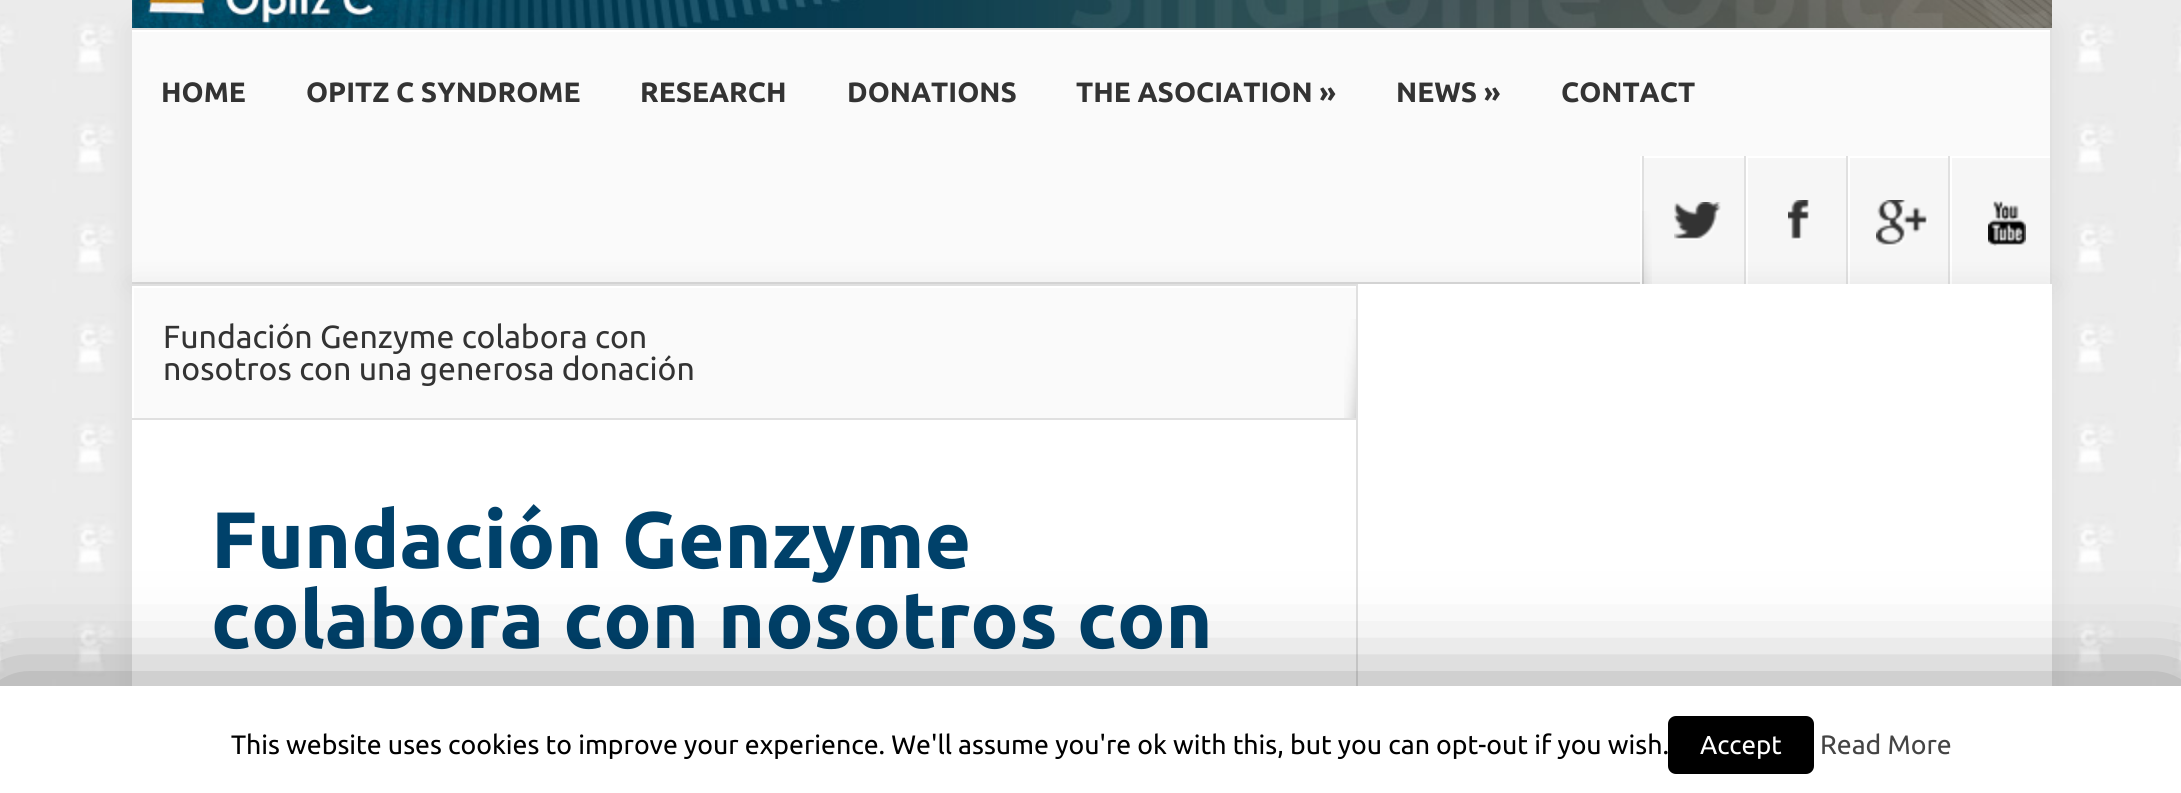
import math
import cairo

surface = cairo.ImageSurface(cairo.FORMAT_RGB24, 2181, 793)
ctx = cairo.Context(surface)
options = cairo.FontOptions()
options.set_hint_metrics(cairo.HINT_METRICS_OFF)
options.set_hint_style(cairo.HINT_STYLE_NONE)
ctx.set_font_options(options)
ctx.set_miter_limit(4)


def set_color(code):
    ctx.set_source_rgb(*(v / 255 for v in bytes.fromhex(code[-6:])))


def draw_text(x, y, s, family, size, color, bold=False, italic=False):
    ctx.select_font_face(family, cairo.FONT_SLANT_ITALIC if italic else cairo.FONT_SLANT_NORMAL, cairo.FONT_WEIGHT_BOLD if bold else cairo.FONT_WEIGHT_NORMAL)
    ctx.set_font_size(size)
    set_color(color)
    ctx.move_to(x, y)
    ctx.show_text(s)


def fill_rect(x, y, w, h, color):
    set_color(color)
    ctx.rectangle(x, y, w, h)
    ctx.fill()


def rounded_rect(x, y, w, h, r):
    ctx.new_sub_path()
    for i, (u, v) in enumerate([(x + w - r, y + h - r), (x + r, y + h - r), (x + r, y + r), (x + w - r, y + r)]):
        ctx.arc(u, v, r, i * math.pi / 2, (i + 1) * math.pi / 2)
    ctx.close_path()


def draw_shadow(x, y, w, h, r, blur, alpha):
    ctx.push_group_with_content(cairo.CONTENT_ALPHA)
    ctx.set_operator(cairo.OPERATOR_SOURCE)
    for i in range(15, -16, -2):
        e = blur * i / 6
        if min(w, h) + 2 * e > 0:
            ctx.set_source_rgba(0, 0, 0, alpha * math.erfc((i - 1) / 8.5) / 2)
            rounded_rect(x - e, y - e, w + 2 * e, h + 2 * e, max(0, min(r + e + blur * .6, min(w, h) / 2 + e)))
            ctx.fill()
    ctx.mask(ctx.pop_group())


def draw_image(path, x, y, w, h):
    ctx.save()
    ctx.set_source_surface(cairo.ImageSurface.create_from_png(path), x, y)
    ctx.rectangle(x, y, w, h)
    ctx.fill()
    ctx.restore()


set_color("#ffffff")
ctx.paint()
draw_image("assets/img1.png", 0, 0, 2181, 686)
set_color("#000000")
draw_shadow(132, 28, 1920, 256, 0, 15, 0.07)
draw_image("assets/img2.png", 132, 0, 1920, 28)
fill_rect(132, 32, 1918, 250, "#fafafa")
fill_rect(132, 282, 1508, 2, "#dadada")
fill_rect(132, 30, 1918, 2, "#ffffff")
fill_rect(132, 28, 1920, 2, "#e0e0e0")
fill_rect(2050, 28, 2, 256, "#e0e0e0")
draw_text(161, 102, "HOME", "Ubuntu", 28, "#333333", bold=True)
draw_text(306, 102, "OPITZ C SYNDROME", "Ubuntu", 28, "#333333", bold=True)
draw_text(640, 102, "RESEARCH", "Ubuntu", 28, "#333333", bold=True)
draw_text(847, 102, "DONATIONS", "Ubuntu", 28, "#333333", bold=True)
draw_text(1076, 102, "THE ASOCIATION »", "Ubuntu", 28, "#333333", bold=True)
draw_text(1396, 102, "NEWS »", "Ubuntu", 28, "#333333", bold=True)
draw_text(1561, 102, "CONTACT", "Ubuntu", 28, "#333333", bold=True)
fill_rect(1640, 156, 2, 128, "#ffffff")
fill_rect(1644, 158, 406, 126, "#f6f6f6")
fill_rect(1642, 156, 408, 2, "#ffffff")
fill_rect(1642, 156, 2, 128, "#e0e0e0")
draw_image("assets/img3.png", 1674, 202, 47, 38)
fill_rect(1746, 156, 2, 128, "#ffffff")
fill_rect(1744, 156, 2, 128, "#e0e0e0")
draw_image("assets/img4.png", 1788, 200, 22, 40)
fill_rect(1848, 156, 2, 128, "#ffffff")
fill_rect(1846, 156, 2, 128, "#e0e0e0")
draw_image("assets/img5.png", 1876, 200, 52, 46)
fill_rect(1950, 156, 2, 128, "#ffffff")
fill_rect(1948, 156, 2, 128, "#e0e0e0")
draw_image("assets/img6.png", 1988, 201, 38, 45)
draw_image("assets/img7.png", 1642, 211, 10, 73)
set_color("#000000")
draw_shadow(132, 284, 1920, 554, 0, 15, 0.07)
fill_rect(132, 284, 1920, 402, "#ffffff")
fill_rect(1356, 284, 2, 402, "#e0e0e0")
fill_rect(134, 288, 1222, 130, "#fafafa")
fill_rect(132, 284, 1224, 2, "#e0e0e0")
fill_rect(132, 418, 1224, 2, "#e0e0e0")
draw_text(163, 348, "Fundación Genzyme colabora con", "Ubuntu", 32, "#333333")
draw_text(163, 380, "nosotros con una generosa donación", "Ubuntu", 32, "#333333")
draw_image("assets/img8.png", 1344, 319, 12, 99)
draw_text(211, 568, "Fundación Genzyme", "Ubuntu", 80, "#00416a", bold=True)
draw_text(211, 648, "colabora con nosotros con", "Ubuntu", 80, "#00416a", bold=True)
set_color("#000000")
draw_shadow(0, 696, 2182, 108, 0, 50, 0.5)
fill_rect(0, 686, 2181, 107, "#ffffff")
draw_text(231, 754, "This website uses cookies to improve your experience. We'll assume you're ok with this, but you can opt-out if you wish.", "Ubuntu", 26.67, "#000000")
rounded_rect(1668, 716, 146, 58, 8)
ctx.fill()
draw_text(1700, 754, "Accept", "Ubuntu", 26, "#ffffff")
draw_text(1820, 754, "Read More", "Ubuntu", 26.67, "#444444")
surface.write_to_png("output.png")
